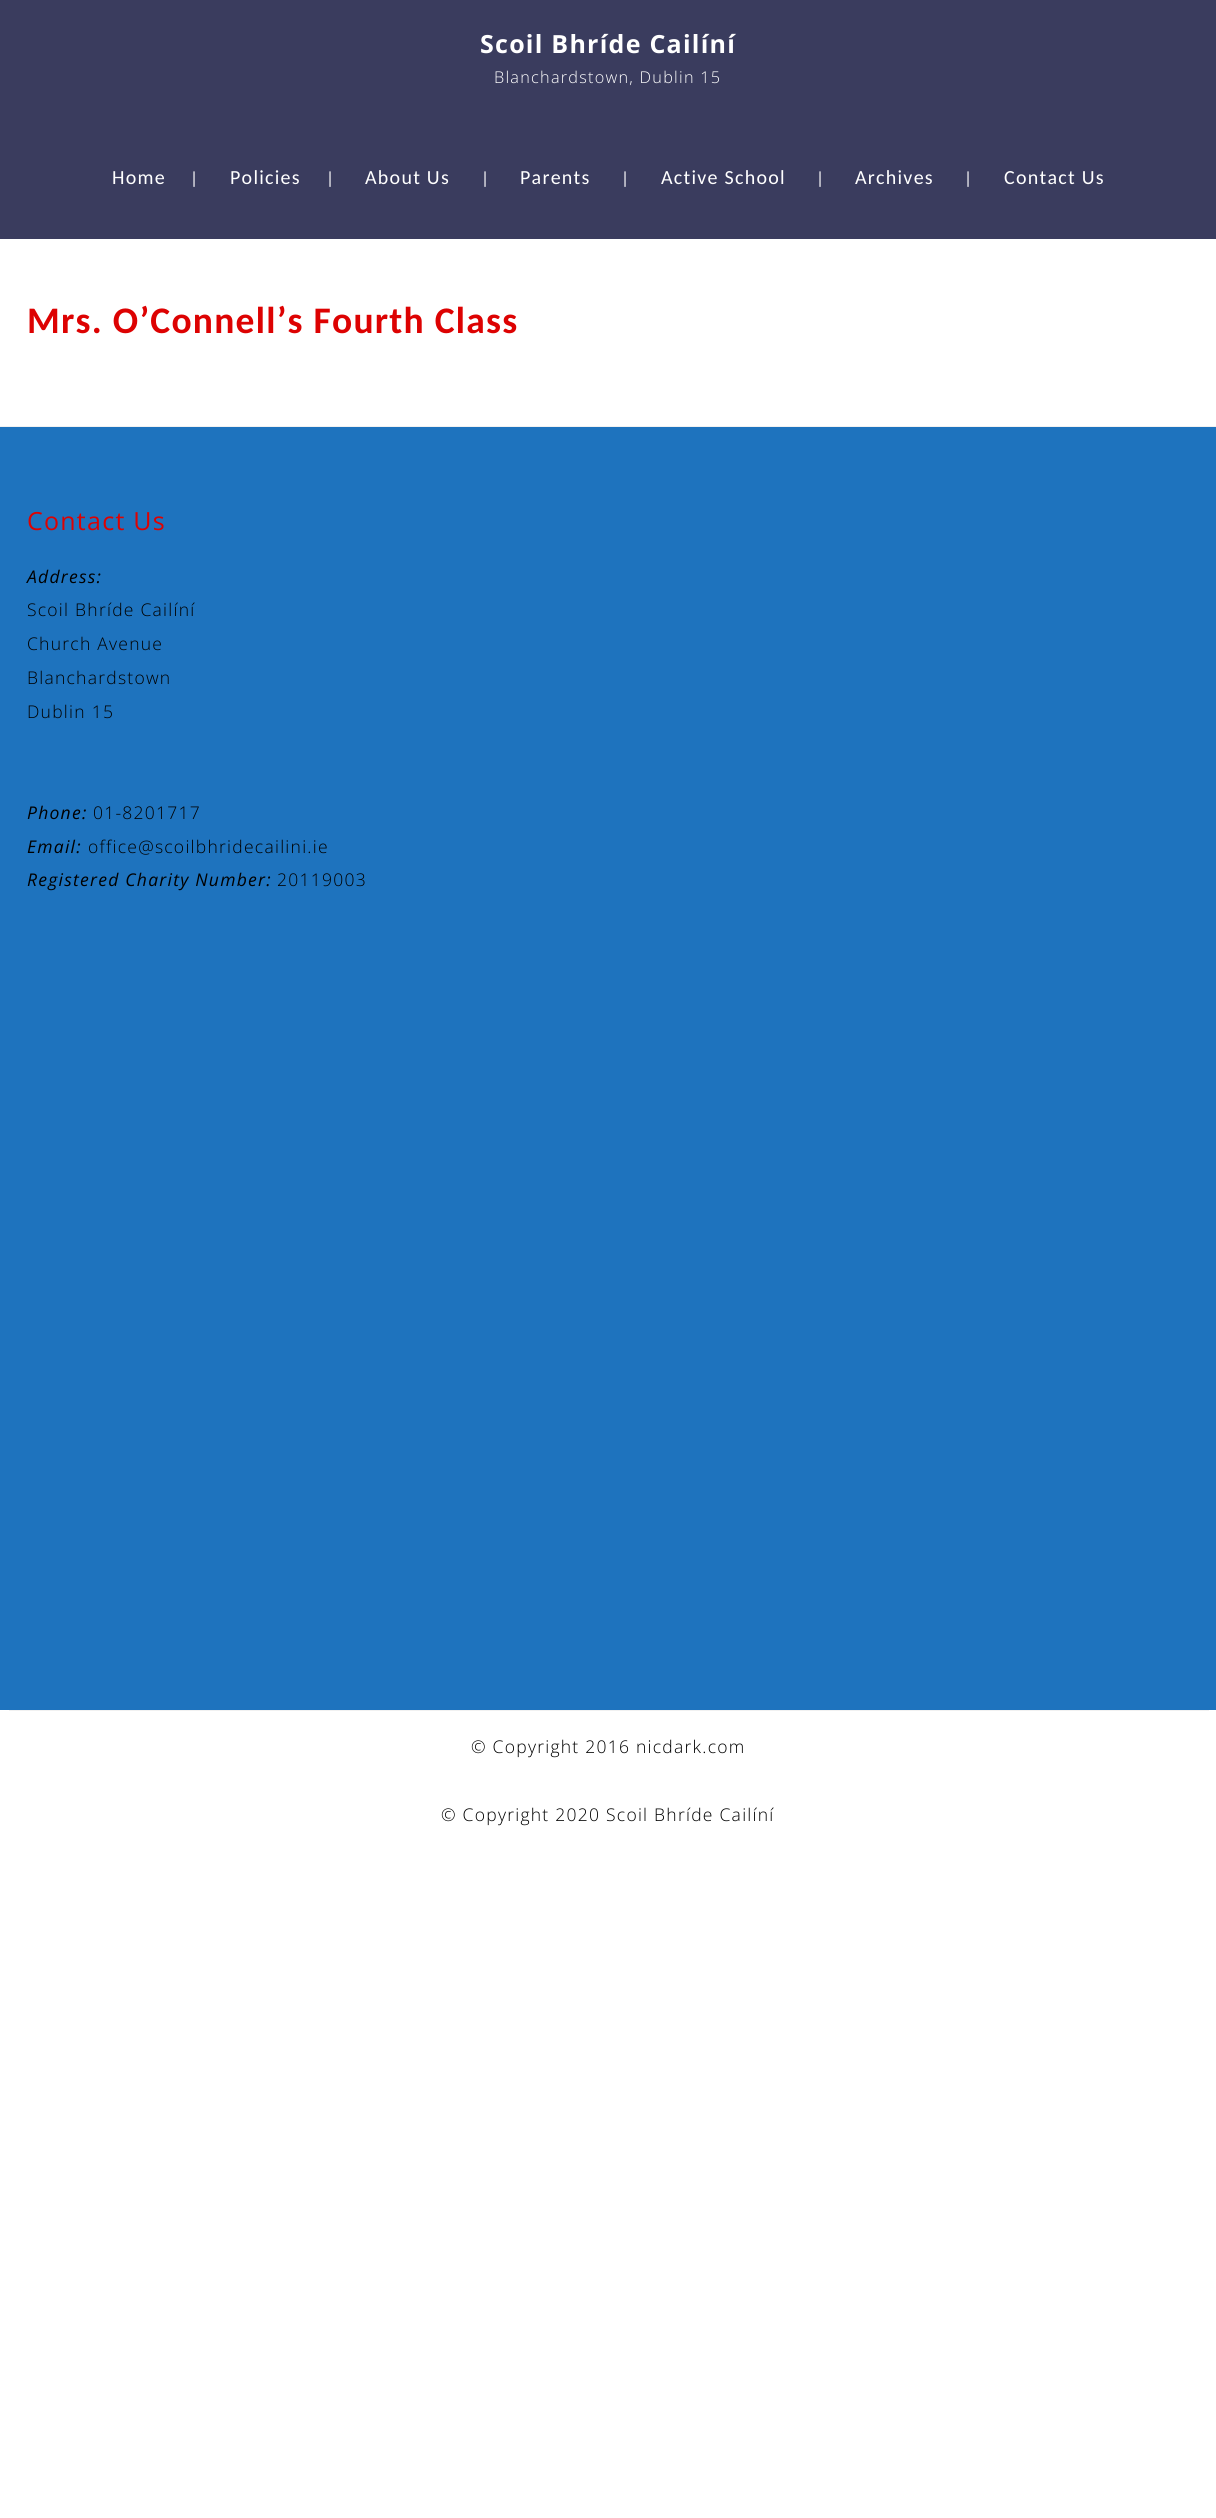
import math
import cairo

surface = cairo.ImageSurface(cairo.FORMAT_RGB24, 1216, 2518)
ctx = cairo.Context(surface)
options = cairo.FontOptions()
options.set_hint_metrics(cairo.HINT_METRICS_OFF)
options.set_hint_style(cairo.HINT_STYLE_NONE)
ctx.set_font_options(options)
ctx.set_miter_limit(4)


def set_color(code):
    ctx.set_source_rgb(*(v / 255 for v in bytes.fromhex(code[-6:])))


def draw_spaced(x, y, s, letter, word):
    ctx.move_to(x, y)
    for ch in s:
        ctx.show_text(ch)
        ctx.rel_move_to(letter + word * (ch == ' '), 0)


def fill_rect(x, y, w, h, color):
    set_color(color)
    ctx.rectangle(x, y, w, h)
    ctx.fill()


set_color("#ffffff")
ctx.paint()
fill_rect(0, 0, 1216, 239, "#3a3c5e")
ctx.select_font_face("Open Sans", cairo.FONT_SLANT_NORMAL, cairo.FONT_WEIGHT_BOLD)
ctx.set_font_size(25)
set_color("#ffffff")
draw_spaced(480, 53, "Scoil Bhríde Cailíní", 1.25, 0)
ctx.select_font_face("Open Sans Light")
ctx.set_font_size(16.25)
draw_spaced(494, 83, "Blanchardstown, Dublin 15", 1.25, 0)
ctx.select_font_face("Carlito")
ctx.set_font_size(20)
draw_spaced(112, 184, "Home", 1.25, 0)
ctx.set_font_size(17.5)
draw_spaced(190, 184, "|", 1.25, 0)
ctx.set_font_size(20)
draw_spaced(230, 184, "Policies", 1.25, 0)
ctx.set_font_size(17.5)
draw_spaced(326, 184, "|", 1.25, 0)
ctx.set_font_size(20)
draw_spaced(365, 184, "About Us", 1.25, 0)
ctx.set_font_size(17.5)
draw_spaced(481, 184, "|", 1.25, 0)
ctx.set_font_size(20)
draw_spaced(520, 184, "Parents", 1.25, 0)
ctx.set_font_size(17.5)
draw_spaced(621, 184, "|", 1.25, 0)
ctx.set_font_size(20)
draw_spaced(661, 184, "Active School", 1.25, 0)
ctx.set_font_size(17.5)
draw_spaced(816, 184, "|", 1.25, 0)
ctx.set_font_size(20)
draw_spaced(855, 184, "Archives", 1.25, 0)
ctx.set_font_size(17.5)
draw_spaced(964, 184, "|", 1.25, 0)
ctx.set_font_size(20)
draw_spaced(1004, 184, "Contact Us", 1.25, 0)
ctx.select_font_face("Carlito", cairo.FONT_SLANT_NORMAL, cairo.FONT_WEIGHT_BOLD)
ctx.set_font_size(37.5)
set_color("#dd0202")
draw_spaced(27, 333, "Mrs. O’Connell’s Fourth Class", 1.25, 0)
fill_rect(0, 427, 1216, 1283, "#1e73be")
fill_rect(0, 426, 1216, 1, "#f1f1f1")
ctx.select_font_face("Open Sans")
ctx.set_font_size(25)
set_color("#dd0202")
draw_spaced(27, 530, "Contact Us", 1.25, 0)
ctx.select_font_face("Open Sans", cairo.FONT_SLANT_ITALIC)
ctx.set_font_size(17.5)
set_color("#000000")
draw_spaced(27, 583, "Address:", 1.25, 0)
ctx.select_font_face("Open Sans Light")
draw_spaced(27, 616, "Scoil Bhríde Cailíní", 1.25, 0)
draw_spaced(27, 650, "Church Avenue", 1.25, 0)
draw_spaced(27, 684, "Blanchardstown", 1.25, 0)
draw_spaced(27, 718, "Dublin 15", 1.25, 0)
ctx.select_font_face("Open Sans", cairo.FONT_SLANT_ITALIC)
draw_spaced(27, 819, "Phone:", 1.25, 0)
ctx.select_font_face("Open Sans Light")
draw_spaced(93, 819, "01-8201717", 1.25, 0)
ctx.select_font_face("Open Sans", cairo.FONT_SLANT_ITALIC)
draw_spaced(27, 853, "Email:", 1.25, 0)
ctx.select_font_face("Open Sans Light")
draw_spaced(88, 853, "office@scoilbhridecailini.ie", 1.25, 0)
ctx.select_font_face("Open Sans", cairo.FONT_SLANT_ITALIC)
draw_spaced(27, 886, "Registered Charity Number:", 1.25, 0)
ctx.select_font_face("Open Sans Light")
draw_spaced(277, 886, "20119003", 1.25, 0)
fill_rect(9, 1710, 1200, 1, "#f1f1f1")
set_color("#000000")
draw_spaced(471, 1753, "© Copyright 2016 nicdark.com", 1.25, 0)
draw_spaced(441, 1821, "© Copyright 2020 Scoil Bhríde Cailíní", 1.25, 0)
surface.write_to_png("output.png")
